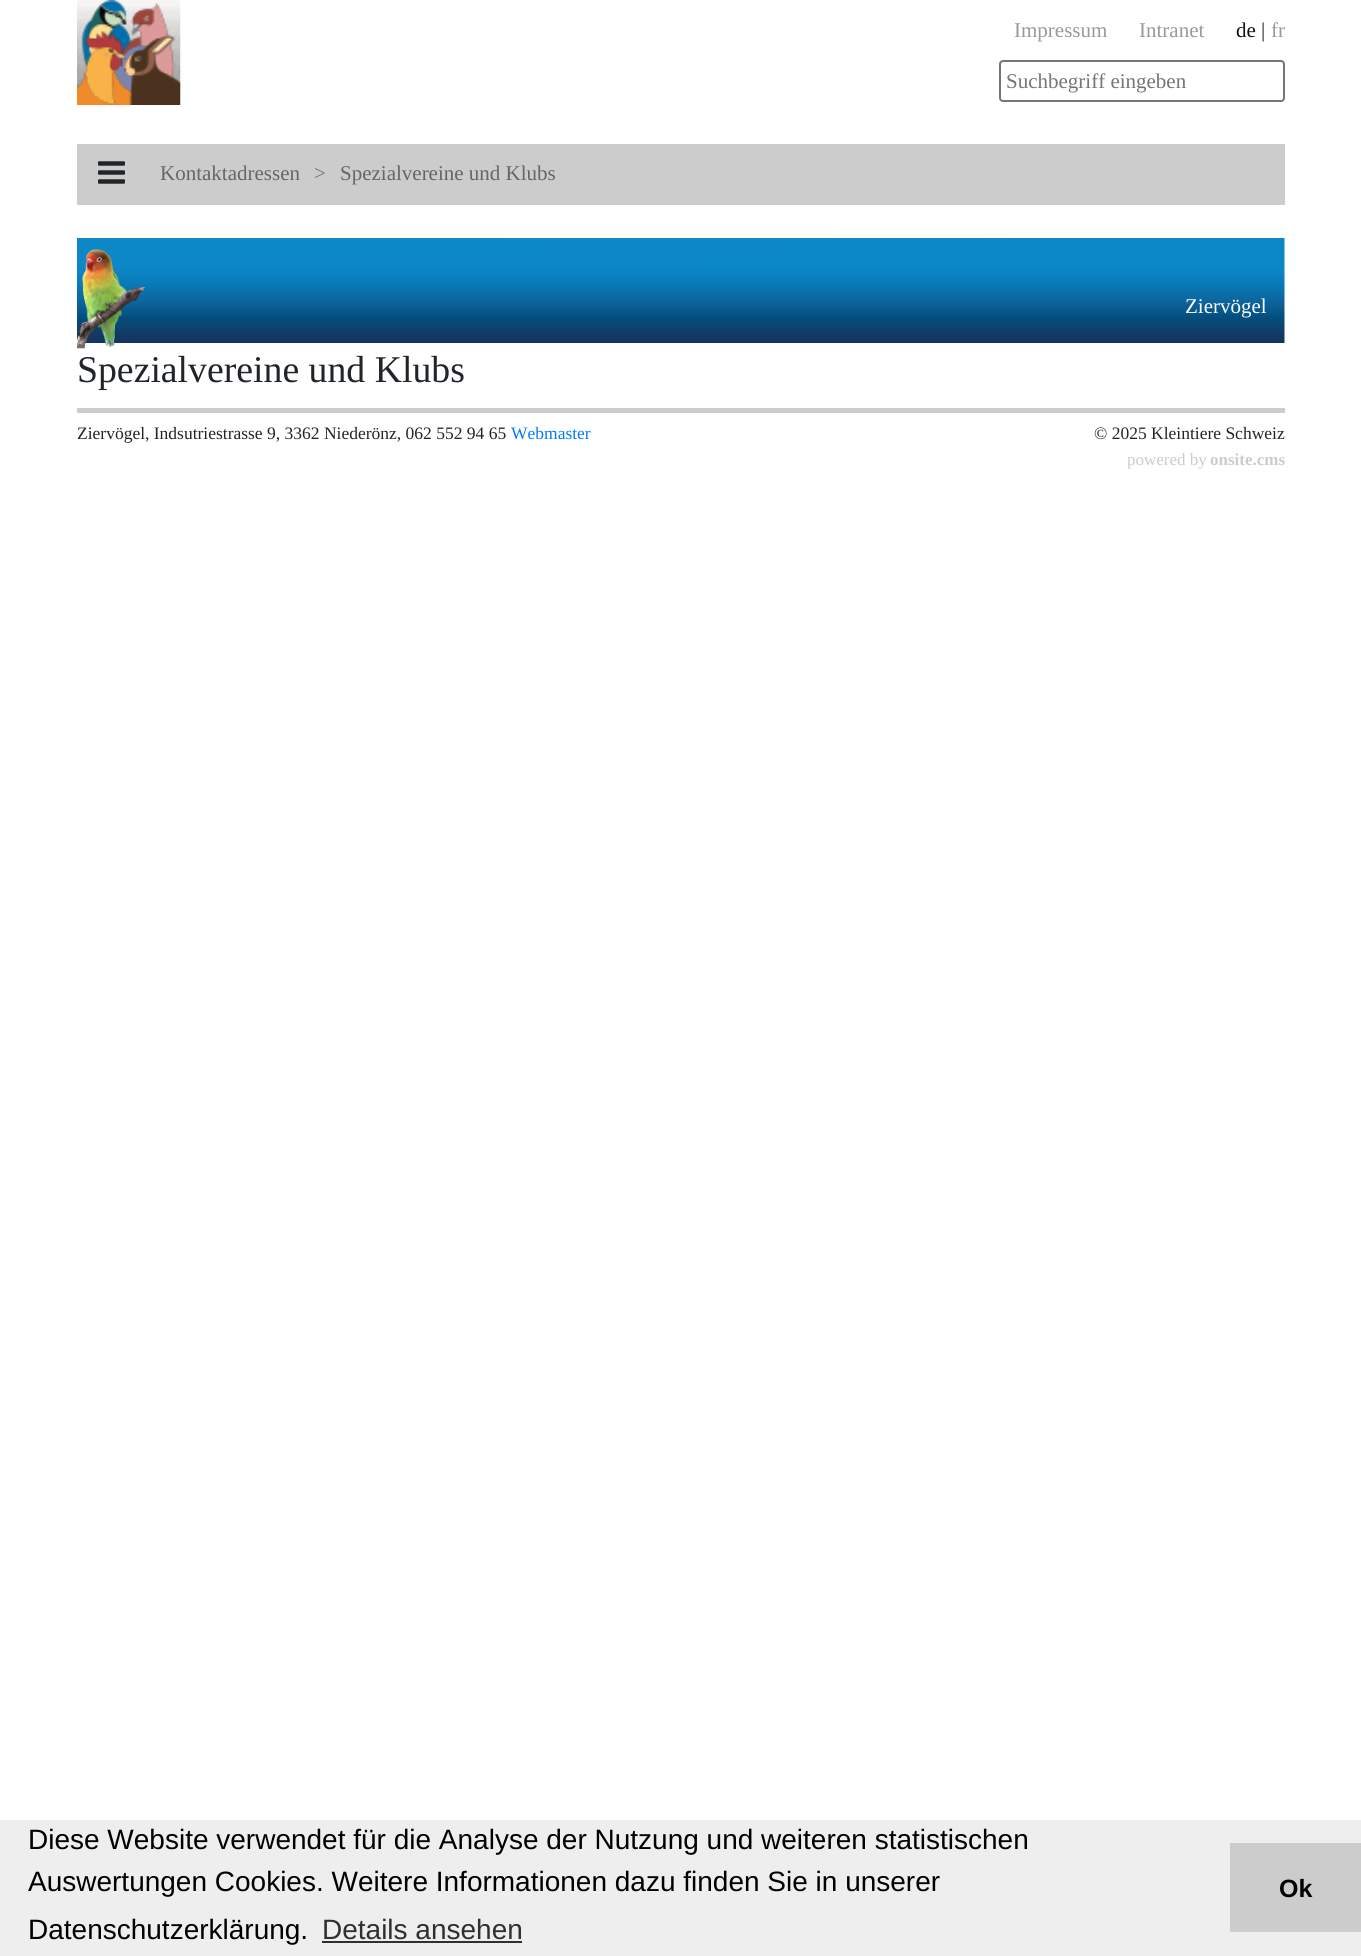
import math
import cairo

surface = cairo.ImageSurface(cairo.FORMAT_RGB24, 1361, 1956)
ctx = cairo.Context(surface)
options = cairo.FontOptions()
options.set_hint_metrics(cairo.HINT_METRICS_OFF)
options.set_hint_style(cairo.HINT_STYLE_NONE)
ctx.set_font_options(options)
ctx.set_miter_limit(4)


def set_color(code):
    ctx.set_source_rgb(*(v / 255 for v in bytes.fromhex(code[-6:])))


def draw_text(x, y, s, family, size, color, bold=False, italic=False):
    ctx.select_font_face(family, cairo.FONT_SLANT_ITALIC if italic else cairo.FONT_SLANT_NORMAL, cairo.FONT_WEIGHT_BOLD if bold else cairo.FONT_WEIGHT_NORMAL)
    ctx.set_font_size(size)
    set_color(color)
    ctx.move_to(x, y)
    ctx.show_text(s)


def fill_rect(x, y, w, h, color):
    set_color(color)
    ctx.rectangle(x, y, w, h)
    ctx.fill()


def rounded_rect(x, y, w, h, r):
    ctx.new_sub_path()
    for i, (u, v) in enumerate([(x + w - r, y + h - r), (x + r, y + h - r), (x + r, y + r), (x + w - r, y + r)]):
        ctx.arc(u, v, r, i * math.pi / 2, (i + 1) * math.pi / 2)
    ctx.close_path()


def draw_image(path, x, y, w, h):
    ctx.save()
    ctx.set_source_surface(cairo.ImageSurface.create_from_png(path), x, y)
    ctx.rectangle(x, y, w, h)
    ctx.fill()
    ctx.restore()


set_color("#ffffff")
ctx.paint()
draw_image("assets/img1.png", 77, 0, 104, 105)
draw_text(1014, 37, "Impressum", "Liberation Serif", 21, "#999999")
draw_text(1139, 37, "Intranet", "Liberation Serif", 21, "#999999")
draw_text(1236, 37, "de", "Liberation Serif", 21, "#111111")
draw_text(1261, 37, "|", "Liberation Serif", 21, "#212529")
draw_text(1271, 37, "fr", "Liberation Serif", 21, "#999999")
rounded_rect(1000, 61, 284, 40, 3)
set_color("#767676")
ctx.stroke()
draw_text(1006, 88, "Suchbegriff eingeben", "Liberation Serif", 21, "#757575")
fill_rect(77, 144, 1208, 61, "#cccccc")
draw_image("assets/img2.png", 98, 161, 27, 23)
draw_text(160, 180, "Kontaktadressen", "Liberation Serif", 21, "#666666")
draw_text(314, 180, ">", "Liberation Serif", 21, "#6c757d")
draw_text(340, 180, "Spezialvereine und Klubs", "Liberation Serif", 21, "#666666")
draw_image("assets/img3.png", 77, 238, 1208, 105)
draw_image("assets/img4.png", 77, 249, 69, 100)
draw_text(1185, 313, "Ziervögel", "Liberation Serif", 21, "#ffffff")
draw_text(77, 382, "Spezialvereine und Klubs", "Liberation Serif", 37.75, "#212529")
fill_rect(77, 408, 1208, 5, "#cccccc")
draw_text(77, 439, "Ziervögel, Indsutriestrasse 9, 3362 Niederönz, 062 552 94 65", "Liberation Serif", 17.5, "#212529")
draw_text(511, 439, "Webmaster", "Liberation Serif", 17.5, "#007bff")
draw_text(1094, 439, "© 2025 Kleintiere Schweiz", "Liberation Serif", 17.5, "#212529")
draw_text(1127, 465, "powered by", "Liberation Serif", 17, "#cccccc")
draw_text(1210, 465, "onsite.cms", "Liberation Serif", 17, "#cccccc", bold=True)
fill_rect(0, 1820, 1361, 136, "#eeeeee")
draw_text(28, 1849, "Diese Website verwendet für die Analyse der Nutzung und weiteren statistischen", "Liberation Sans", 28, "#000000")
draw_text(28, 1891, "Auswertungen Cookies. Weitere Informationen dazu finden Sie in unserer", "Liberation Sans", 28, "#000000")
draw_text(28, 1939, "Datenschutzerklärung.", "Liberation Sans", 28, "#000000")
draw_text(322, 1939, "Details ansehen", "Liberation Sans", 28, "#303030")
fill_rect(322, 1941, 200, 2, "#303030")
fill_rect(1230, 1843, 131, 89, "#cccccc")
draw_text(1279, 1897, "Ok", "Liberation Sans", 25, "#000000", bold=True)
surface.write_to_png("output.png")
